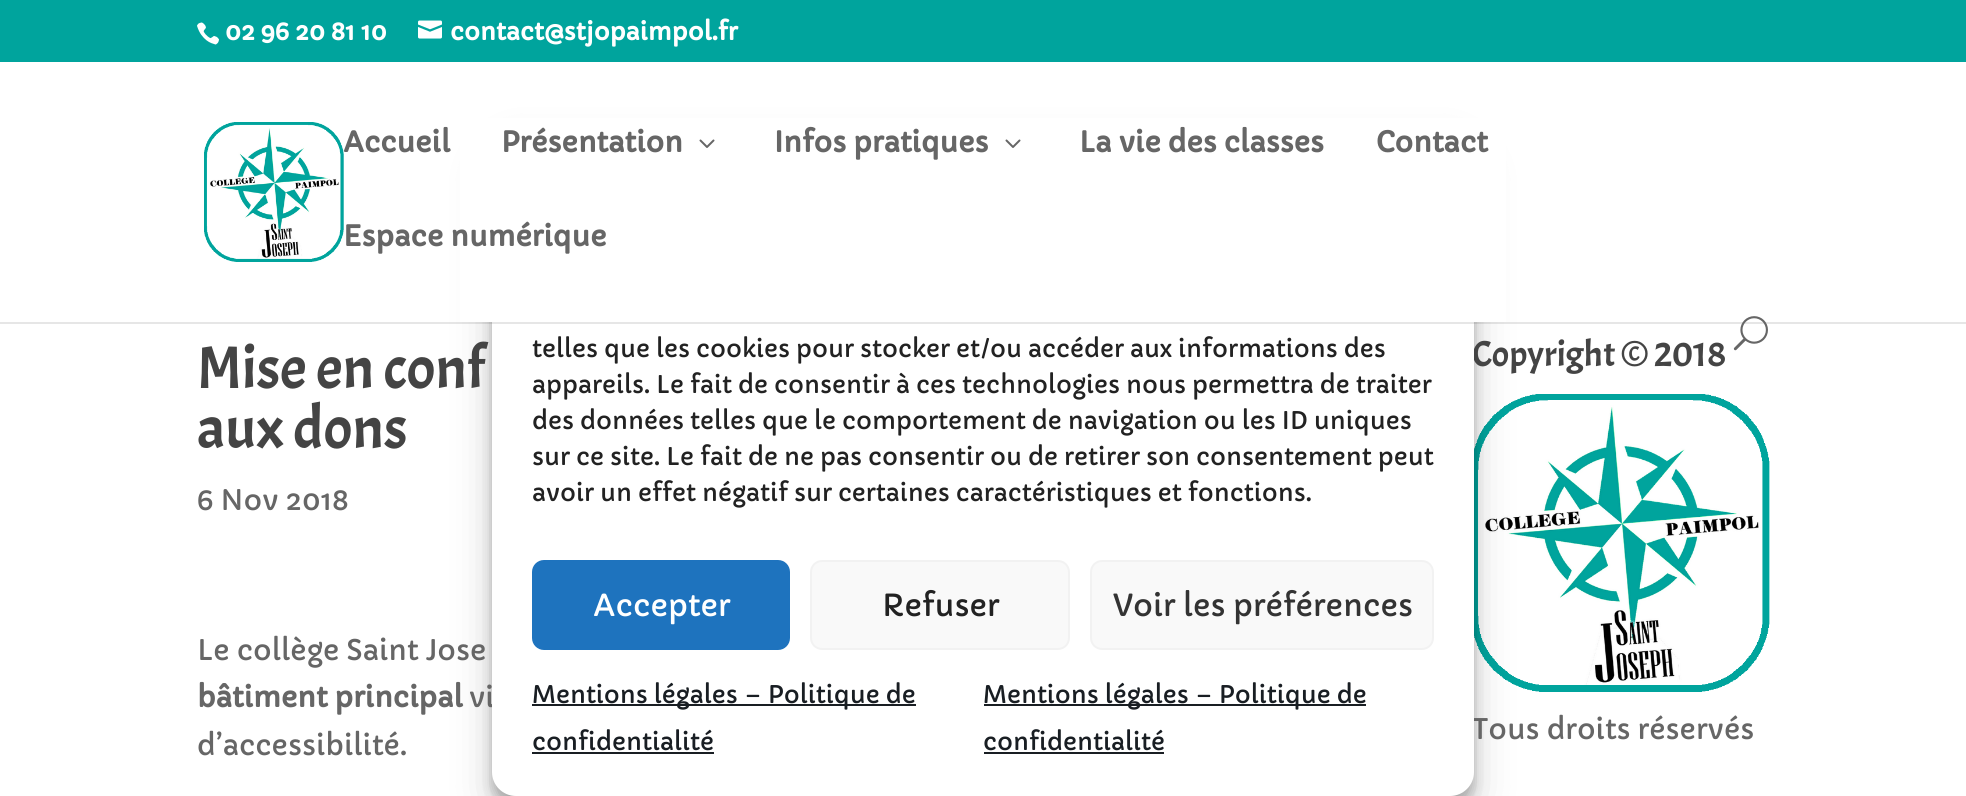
import math
import cairo

surface = cairo.ImageSurface(cairo.FORMAT_RGB24, 1966, 796)
ctx = cairo.Context(surface)
options = cairo.FontOptions()
options.set_hint_metrics(cairo.HINT_METRICS_OFF)
options.set_hint_style(cairo.HINT_STYLE_NONE)
ctx.set_font_options(options)
ctx.set_miter_limit(4)


def set_color(code):
    ctx.set_source_rgb(*(v / 255 for v in bytes.fromhex(code[-6:])))


def draw_text(x, y, s, family, size, color, bold=False, italic=False):
    ctx.select_font_face(family, cairo.FONT_SLANT_ITALIC if italic else cairo.FONT_SLANT_NORMAL, cairo.FONT_WEIGHT_BOLD if bold else cairo.FONT_WEIGHT_NORMAL)
    ctx.set_font_size(size)
    set_color(color)
    ctx.move_to(x, y)
    ctx.show_text(s)


def fill_rect(x, y, w, h, color):
    set_color(color)
    ctx.rectangle(x, y, w, h)
    ctx.fill()


def rounded_rect(x, y, w, h, r):
    ctx.new_sub_path()
    for i, (u, v) in enumerate([(x + w - r, y + h - r), (x + r, y + h - r), (x + r, y + r), (x + w - r, y + r)]):
        ctx.arc(u, v, r, i * math.pi / 2, (i + 1) * math.pi / 2)
    ctx.close_path()


def draw_shadow(x, y, w, h, r, blur, alpha):
    ctx.push_group_with_content(cairo.CONTENT_ALPHA)
    ctx.set_operator(cairo.OPERATOR_SOURCE)
    for i in range(15, -16, -2):
        e = blur * i / 6
        if min(w, h) + 2 * e > 0:
            ctx.set_source_rgba(0, 0, 0, alpha * math.erfc((i - 1) / 8.5) / 2)
            rounded_rect(x - e, y - e, w + 2 * e, h + 2 * e, max(0, min(r + e + blur * .6, min(w, h) / 2 + e)))
            ctx.fill()
    ctx.mask(ctx.pop_group())


def draw_image(path, x, y, w, h):
    ctx.save()
    ctx.set_source_surface(cairo.ImageSurface.create_from_png(path), x, y)
    ctx.rectangle(x, y, w, h)
    ctx.fill()
    ctx.restore()


set_color("#ffffff")
ctx.paint()
fill_rect(0, 0, 1966, 62, "#00a49d")
draw_image("assets/img1.png", 197, 22, 22, 23)
draw_text(225, 40, "02 96 20 81 10", "Capriola", 24, "#ffffff", bold=True)
draw_image("assets/img2.png", 418, 20, 24, 19)
draw_text(450, 40, "contact@stjopaimpol.fr", "Capriola", 24, "#ffffff", bold=True)
draw_image("assets/img6.png", 1474, 394, 296, 298)
set_color("#000000")
draw_shadow(492, 142, 982, 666, 24, 6, 0.23)
draw_shadow(492, 150, 982, 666, 24, 20, 0.19)
draw_text(469, 707, "vi", "Capriola", 28, "#666666")
draw_text(1472, 366, "Copyright © 2018", "Acme", 36, "#444444")
draw_text(1472, 739, "Tous droits réservés", "Capriola", 28, "#666666")
set_color("#ffffff")
rounded_rect(492, 130, 982, 666, 24)
ctx.fill()
ctx.set_source_rgba(0, 0, 0, 0.1)
ctx.rectangle(0, 322, 1966, 2)
ctx.fill()
fill_rect(460, 118, 1046, 204, "#ffffff")
draw_image("assets/img3.png", 204, 122, 140, 140)
draw_text(343, 152, "Accueil", "Capriola", 28, "#666666", bold=True)
draw_text(501, 152, "Présentation", "Capriola", 28, "#666666", bold=True)
draw_image("assets/img4.png", 699, 139, 16, 9)
draw_text(774, 152, "Infos pratiques", "Capriola", 28, "#666666", bold=True)
draw_image("assets/img4.png", 1005, 139, 16, 9)
draw_text(1079, 152, "La vie des classes", "Capriola", 28, "#666666", bold=True)
draw_text(1376, 152, "Contact", "Capriola", 28, "#666666", bold=True)
draw_text(343, 246, "Espace numérique", "Capriola", 28, "#666666", bold=True)
draw_image("assets/img5.png", 1733, 316, 35, 35)
draw_text(197, 388, "Mise en conf", "Acme", 60, "#444444")
draw_text(197, 448, "aux dons", "Acme", 60, "#444444")
draw_text(197, 510, "6 Nov 2018", "Capriola", 28, "#666666")
draw_text(197, 660, "Le collège Saint Jose", "Capriola", 28, "#666666")
draw_text(197, 707, "bâtiment principal", "Capriola", 28, "#666666", bold=True)
draw_text(197, 755, "d’accessibilité.", "Capriola", 28, "#666666")
draw_text(532, 357, "telles que les cookies pour stocker et/ou accéder aux informations des", "Capriola", 24, "#222222")
draw_text(532, 393, "appareils. Le fait de consentir à ces technologies nous permettra de traiter", "Capriola", 24, "#222222")
draw_text(532, 429, "des données telles que le comportement de navigation ou les ID uniques", "Capriola", 24, "#222222")
draw_text(532, 465, "sur ce site. Le fait de ne pas consentir ou de retirer son consentement peut", "Capriola", 24, "#222222")
draw_text(532, 501, "avoir un effet négatif sur certaines caractéristiques et fonctions.", "Capriola", 24, "#222222")
set_color("#1e73be")
rounded_rect(533, 561, 256, 88, 11)
ctx.fill_preserve()
ctx.stroke()
draw_text(593, 616, "Accepter", "Capriola", 30, "#ffffff")
set_color("#f9f9f9")
rounded_rect(811, 561, 258, 88, 11)
ctx.fill_preserve()
set_color("#f2f2f2")
ctx.stroke()
draw_text(882, 616, "Refuser", "Capriola", 30, "#222222")
set_color("#f9f9f9")
rounded_rect(1091, 561, 342, 88, 11)
ctx.fill_preserve()
set_color("#f2f2f2")
ctx.stroke()
draw_text(1113, 616, "Voir les préférences", "Capriola", 30, "#333333")
fill_rect(532, 704, 384, 2, "#191e23")
draw_text(532, 703, "Mentions légales – Politique de", "Capriola", 24, "#191e23")
draw_text(532, 750, "confidentialité", "Capriola", 24, "#191e23")
fill_rect(532, 752, 182, 2, "#191e23")
fill_rect(984, 704, 382, 2, "#191e23")
draw_text(983, 703, "Mentions légales – Politique de", "Capriola", 24, "#191e23")
draw_text(983, 750, "confidentialité", "Capriola", 24, "#191e23")
fill_rect(984, 752, 180, 2, "#191e23")
surface.write_to_png("output.png")
